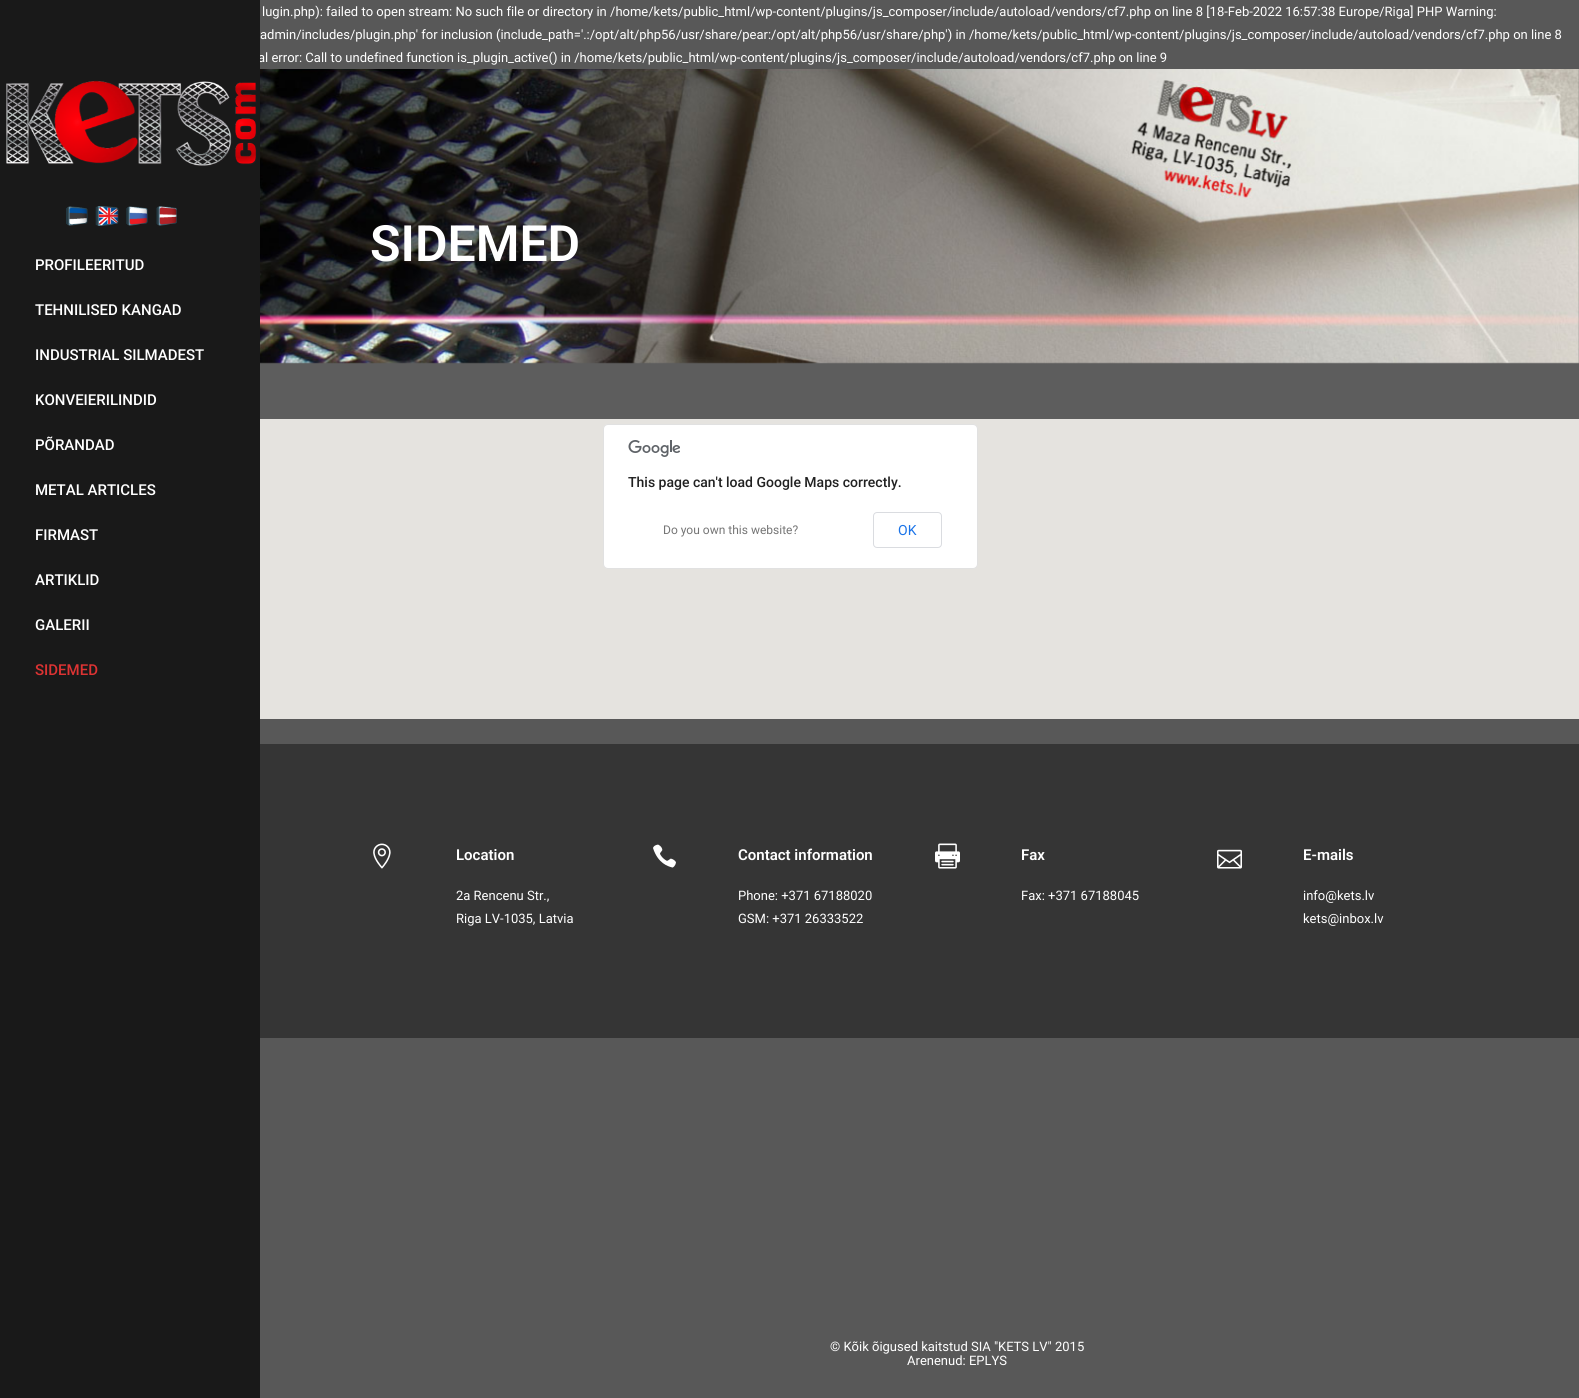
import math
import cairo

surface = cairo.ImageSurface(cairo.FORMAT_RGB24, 1579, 1398)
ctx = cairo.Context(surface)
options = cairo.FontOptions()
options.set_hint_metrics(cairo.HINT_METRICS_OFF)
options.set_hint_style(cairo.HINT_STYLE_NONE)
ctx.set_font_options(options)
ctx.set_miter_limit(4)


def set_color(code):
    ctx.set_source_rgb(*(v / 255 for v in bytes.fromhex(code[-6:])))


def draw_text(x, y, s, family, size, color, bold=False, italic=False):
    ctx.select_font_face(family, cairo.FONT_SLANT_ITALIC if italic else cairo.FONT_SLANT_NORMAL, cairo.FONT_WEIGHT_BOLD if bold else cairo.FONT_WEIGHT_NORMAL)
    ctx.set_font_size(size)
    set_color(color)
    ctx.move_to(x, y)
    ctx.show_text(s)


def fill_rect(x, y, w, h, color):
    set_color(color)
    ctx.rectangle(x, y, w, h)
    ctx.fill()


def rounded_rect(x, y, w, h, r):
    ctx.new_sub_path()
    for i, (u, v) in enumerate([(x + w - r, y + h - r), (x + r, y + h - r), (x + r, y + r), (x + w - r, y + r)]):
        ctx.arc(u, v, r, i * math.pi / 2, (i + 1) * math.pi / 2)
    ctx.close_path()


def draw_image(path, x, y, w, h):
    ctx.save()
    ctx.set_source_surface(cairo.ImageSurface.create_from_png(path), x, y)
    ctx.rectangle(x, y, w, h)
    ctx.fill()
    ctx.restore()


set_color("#585858")
ctx.paint()
draw_text(262, 16, "lugin.php): failed to open stream: No such file or directory in /home/kets/public_html/wp-content/plugins/js_composer/include/autoload/vendors/cf7.php on line 8 [18-Feb-2022 16:57:38 Europe/Riga] PHP Warning:", "Roboto", 13, "#ffffff")
draw_text(260, 39, "admin/includes/plugin.php' for inclusion (include_path='.:/opt/alt/php56/usr/share/pear:/opt/alt/php56/usr/share/php') in /home/kets/public_html/wp-content/plugins/js_composer/include/autoload/vendors/cf7.php on line 8", "Roboto", 13, "#ffffff")
draw_text(258, 62, "al error: Call to undefined function is_plugin_active() in /home/kets/public_html/wp-content/plugins/js_composer/include/autoload/vendors/cf7.php on line 9", "Roboto", 13, "#ffffff")
fill_rect(0, 0, 260, 1398, "#191919")
draw_image("assets/img1.png", 6, 80, 251, 86)
draw_image("assets/img2.png", 66, 206, 22, 20)
draw_image("assets/img3.png", 95, 206, 24, 20)
draw_image("assets/img4.png", 126, 206, 22, 20)
draw_image("assets/img5.png", 156, 206, 21, 20)
draw_text(35, 270, "PROFILEERITUD", "Roboto Medium", 15, "#ffffff")
draw_text(35, 315, "TEHNILISED KANGAD", "Roboto Medium", 15, "#ffffff")
draw_text(35, 360, "INDUSTRIAL SILMADEST", "Roboto Medium", 15, "#ffffff")
draw_text(35, 405, "KONVEIERILINDID", "Roboto Medium", 15, "#ffffff")
draw_text(35, 450, "PÕRANDAD", "Roboto Medium", 15, "#ffffff")
draw_text(35, 495, "METAL ARTICLES", "Roboto Medium", 15, "#ffffff")
draw_text(35, 540, "FIRMAST", "Roboto Medium", 15, "#ffffff")
draw_text(35, 585, "ARTIKLID", "Roboto Medium", 15, "#ffffff")
draw_text(35, 630, "GALERII", "Roboto Medium", 15, "#ffffff")
draw_text(35, 675, "SIDEMED", "Roboto Medium", 15, "#dd3333")
fill_rect(260, 69, 1319, 350, "#5d5d5d")
draw_image("assets/img6.png", 260, 69, 1319, 295)
draw_text(370, 261, "SIDEMED", "Roboto SemiBold", 50, "#ffffff")
fill_rect(260, 419, 1319, 300, "#e5e3df")
set_color("#ffffff")
rounded_rect(603, 424, 375, 145, 5)
ctx.fill()
rounded_rect(603.5, 424.5, 374, 144, 4.5)
ctx.set_source_rgba(0, 0, 0, 0.12)
ctx.set_line_width(1)
ctx.stroke()
draw_image("assets/img7.png", 628, 440, 52, 17)
draw_text(628, 487, "This page can't load Google Maps correctly.", "Roboto Medium", 14, "#212121")
draw_text(663, 534, "Do you own this website?", "Roboto", 12, "#757575")
rounded_rect(873.5, 512.5, 68, 35, 3.5)
set_color("#dadce0")
ctx.stroke()
draw_text(898, 535, "OK", "Roboto", 14, "#1a73e8")
fill_rect(260, 744, 1319, 294, "#353535")
draw_image("assets/img8.png", 373, 843, 18, 26)
draw_text(456, 860, "Location", "Roboto SemiBold", 15, "#ffffff")
draw_text(456, 900, "2а Rencenu Str.,", "Roboto", 13, "#ffffff")
draw_text(456, 923, "Riga LV-1035, Latvia", "Roboto", 13, "#ffffff")
draw_image("assets/img9.png", 653, 844, 23, 24)
draw_text(738, 860, "Сontact information", "Roboto SemiBold", 15, "#ffffff")
draw_text(738, 900, "Phone: +371 67188020", "Roboto", 13, "#ffffff")
draw_text(738, 923, "GSM: +371 26333522", "Roboto", 13, "#ffffff")
draw_image("assets/img10.png", 935, 843, 25, 26)
draw_text(1021, 860, "Fax", "Roboto SemiBold", 15, "#ffffff")
draw_text(1021, 900, "Fax: +371 67188045", "Roboto", 13, "#ffffff")
draw_image("assets/img11.png", 1217, 849, 25, 20)
draw_text(1303, 860, "E-mails", "Roboto SemiBold", 15, "#ffffff")
draw_text(1303, 900, "info@kets.lv", "Roboto", 13, "#ffffff")
draw_text(1303, 923, "kets@inbox.lv", "Roboto", 13, "#ffffff")
draw_text(830, 1351, "© Kõik õigused kaitstud SIA \"KETS LV\" 2015", "Roboto", 13, "#ffffff")
draw_text(907, 1365, "Arenenud: EPLYS", "Roboto", 13, "#ffffff")
surface.write_to_png("output.png")
